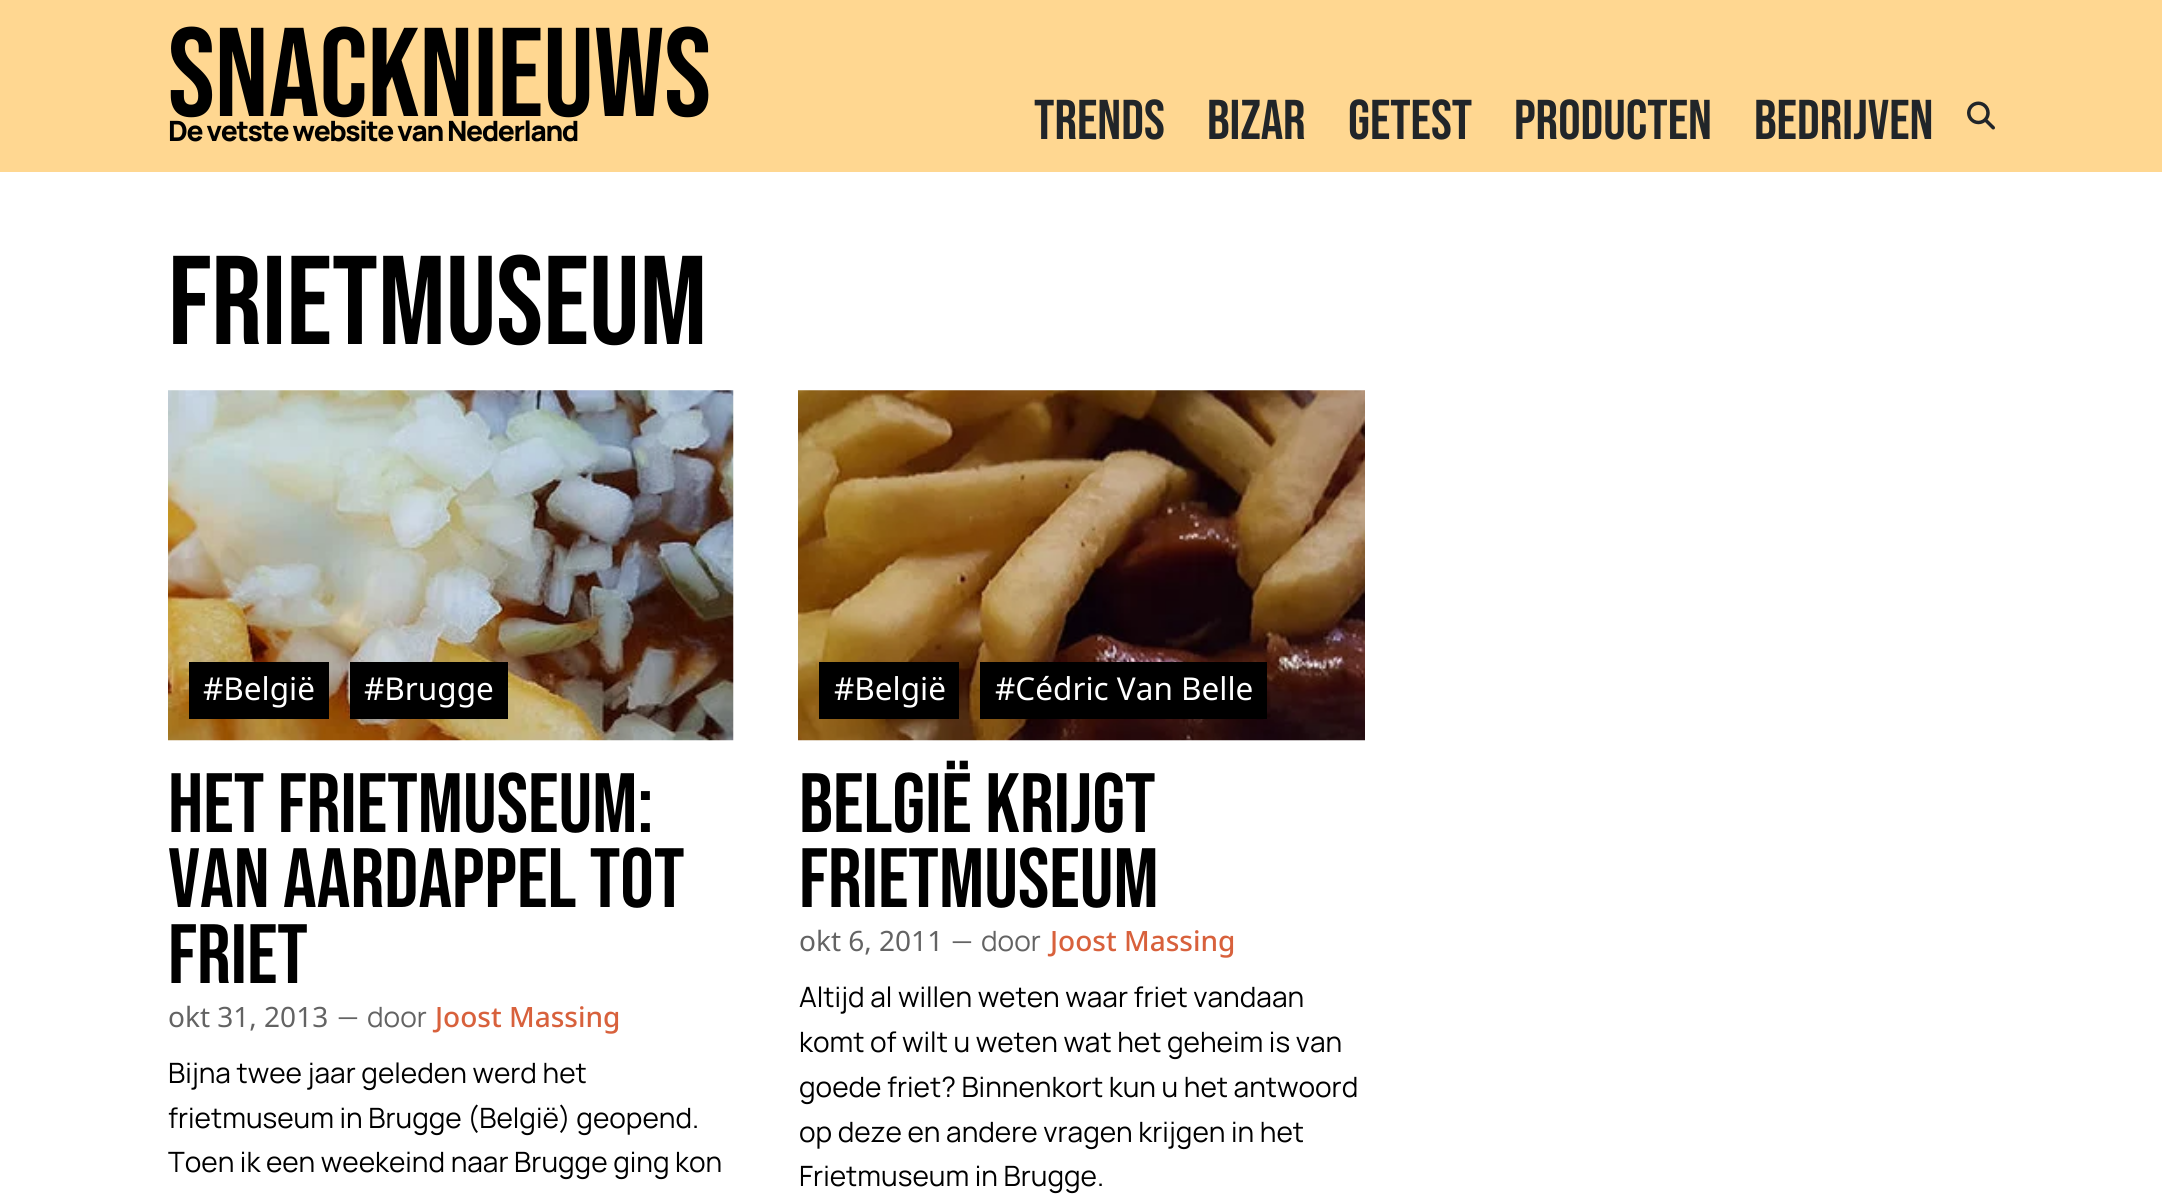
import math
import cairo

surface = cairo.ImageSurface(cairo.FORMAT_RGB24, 2162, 1197)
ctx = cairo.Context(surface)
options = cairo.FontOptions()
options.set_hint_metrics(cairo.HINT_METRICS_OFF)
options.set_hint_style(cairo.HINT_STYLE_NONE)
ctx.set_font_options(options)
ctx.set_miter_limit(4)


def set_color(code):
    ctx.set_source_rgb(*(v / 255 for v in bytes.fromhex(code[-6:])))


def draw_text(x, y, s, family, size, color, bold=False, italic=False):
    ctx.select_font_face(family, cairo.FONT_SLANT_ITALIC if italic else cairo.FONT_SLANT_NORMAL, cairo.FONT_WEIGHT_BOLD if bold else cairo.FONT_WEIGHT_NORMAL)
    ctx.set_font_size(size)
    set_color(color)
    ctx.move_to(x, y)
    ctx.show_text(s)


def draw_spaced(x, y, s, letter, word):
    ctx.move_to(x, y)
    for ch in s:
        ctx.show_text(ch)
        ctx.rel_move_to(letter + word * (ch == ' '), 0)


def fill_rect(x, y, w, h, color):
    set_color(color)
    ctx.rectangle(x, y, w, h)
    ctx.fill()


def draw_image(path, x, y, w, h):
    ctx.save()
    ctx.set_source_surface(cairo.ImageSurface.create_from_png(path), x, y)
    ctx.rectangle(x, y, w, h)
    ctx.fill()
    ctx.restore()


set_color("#ffd791")
ctx.paint()
draw_text(168, 116, "Snacknieuws", "Bebas Neue", 126, "#000000")
ctx.select_font_face("Manrope ExtraBold")
ctx.set_font_size(28)
draw_spaced(168, 141, "De vetste website van Nederland", -1.4, 0)
draw_text(1034, 139, "Trends", "Bebas Neue", 56, "#212529")
draw_text(1207, 139, "Bizar", "Bebas Neue", 56, "#212529")
draw_text(1348, 139, "Getest", "Bebas Neue", 56, "#212529")
draw_text(1514, 139, "Producten", "Bebas Neue", 56, "#212529")
draw_text(1754, 139, "Bedrijven", "Bebas Neue", 56, "#212529")
draw_image("assets/img1.png", 1967, 101, 28, 29)
fill_rect(0, 172, 2162, 1025, "#ffffff")
draw_text(168, 344, "Frietmuseum", "Bebas Neue", 126, "#000000")
draw_image("assets/img2.png", 168, 390, 566, 351)
fill_rect(189, 662, 140, 57, "#000000")
draw_text(203, 700, "#België", "Noto Sans", 31.5, "#ffffff")
fill_rect(350, 662, 158, 57, "#000000")
draw_text(364, 700, "#Brugge", "Noto Sans", 31.5, "#ffffff")
draw_text(168, 832, "Het Frietmuseum:", "Bebas Neue", 84, "#000000")
draw_text(168, 907, "van aardappel tot", "Bebas Neue", 84, "#000000")
draw_text(168, 983, "friet", "Bebas Neue", 84, "#000000")
draw_text(168, 1027, "okt 31, 2013", "Noto Sans", 28, "#636363")
draw_text(337, 1027, "—", "Manrope", 28, "#636363")
draw_text(367, 1027, "door", "Manrope", 28, "#636363")
draw_text(435, 1027, "Joost Massing", "Noto Sans Medium", 28, "#d8613c")
draw_text(168, 1083, "Bijna twee jaar geleden werd het", "Manrope", 28, "#000000")
draw_text(168, 1128, "frietmuseum in Brugge (België) geopend.", "Manrope", 28, "#000000")
draw_text(168, 1172, "Toen ik een weekeind naar Brugge ging kon", "Manrope", 28, "#000000")
draw_image("assets/img3.png", 798, 390, 567, 351)
fill_rect(819, 662, 140, 57, "#000000")
draw_text(834, 700, "#België", "Noto Sans", 31.5, "#ffffff")
fill_rect(980, 662, 287, 57, "#000000")
draw_text(995, 700, "#Cédric Van Belle", "Noto Sans", 31.5, "#ffffff")
draw_text(799, 832, "België krijgt", "Bebas Neue", 84, "#000000")
draw_text(799, 907, "frietmuseum", "Bebas Neue", 84, "#000000")
draw_text(799, 951, "okt 6, 2011", "Noto Sans", 28, "#636363")
draw_text(951, 951, "—", "Manrope", 28, "#636363")
draw_text(981, 951, "door", "Manrope", 28, "#636363")
draw_text(1050, 951, "Joost Massing", "Noto Sans Medium", 28, "#d8613c")
draw_text(799, 1007, "Altijd al willen weten waar friet vandaan", "Manrope", 28, "#000000")
draw_text(799, 1052, "komt of wilt u weten wat het geheim is van", "Manrope", 28, "#000000")
draw_text(799, 1097, "goede friet? Binnenkort kun u het antwoord", "Manrope", 28, "#000000")
draw_text(799, 1142, "op deze en andere vragen krijgen in het", "Manrope", 28, "#000000")
draw_text(799, 1186, "Frietmuseum in Brugge.", "Manrope", 28, "#000000")
surface.write_to_png("output.png")
